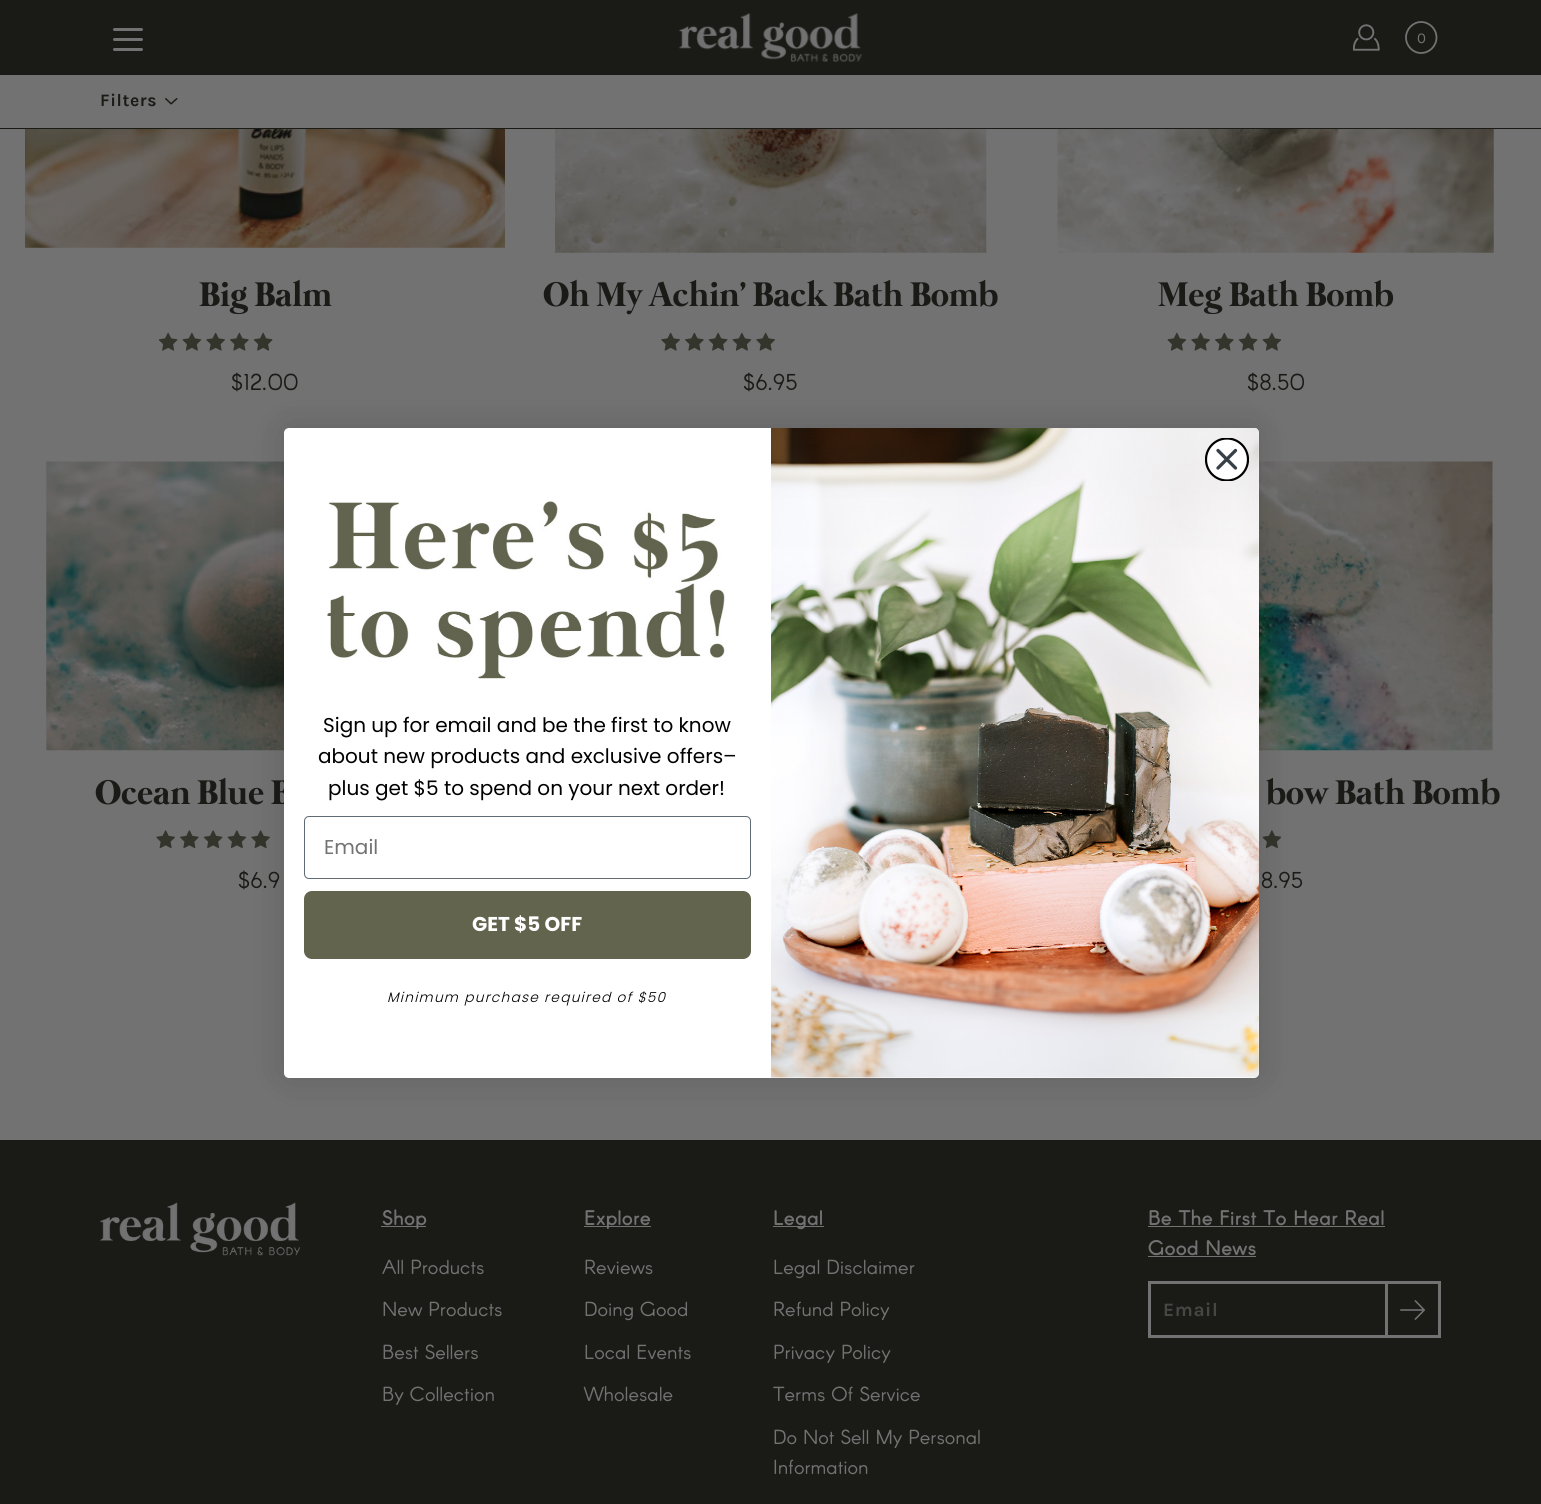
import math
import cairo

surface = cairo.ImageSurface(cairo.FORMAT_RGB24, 1541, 1504)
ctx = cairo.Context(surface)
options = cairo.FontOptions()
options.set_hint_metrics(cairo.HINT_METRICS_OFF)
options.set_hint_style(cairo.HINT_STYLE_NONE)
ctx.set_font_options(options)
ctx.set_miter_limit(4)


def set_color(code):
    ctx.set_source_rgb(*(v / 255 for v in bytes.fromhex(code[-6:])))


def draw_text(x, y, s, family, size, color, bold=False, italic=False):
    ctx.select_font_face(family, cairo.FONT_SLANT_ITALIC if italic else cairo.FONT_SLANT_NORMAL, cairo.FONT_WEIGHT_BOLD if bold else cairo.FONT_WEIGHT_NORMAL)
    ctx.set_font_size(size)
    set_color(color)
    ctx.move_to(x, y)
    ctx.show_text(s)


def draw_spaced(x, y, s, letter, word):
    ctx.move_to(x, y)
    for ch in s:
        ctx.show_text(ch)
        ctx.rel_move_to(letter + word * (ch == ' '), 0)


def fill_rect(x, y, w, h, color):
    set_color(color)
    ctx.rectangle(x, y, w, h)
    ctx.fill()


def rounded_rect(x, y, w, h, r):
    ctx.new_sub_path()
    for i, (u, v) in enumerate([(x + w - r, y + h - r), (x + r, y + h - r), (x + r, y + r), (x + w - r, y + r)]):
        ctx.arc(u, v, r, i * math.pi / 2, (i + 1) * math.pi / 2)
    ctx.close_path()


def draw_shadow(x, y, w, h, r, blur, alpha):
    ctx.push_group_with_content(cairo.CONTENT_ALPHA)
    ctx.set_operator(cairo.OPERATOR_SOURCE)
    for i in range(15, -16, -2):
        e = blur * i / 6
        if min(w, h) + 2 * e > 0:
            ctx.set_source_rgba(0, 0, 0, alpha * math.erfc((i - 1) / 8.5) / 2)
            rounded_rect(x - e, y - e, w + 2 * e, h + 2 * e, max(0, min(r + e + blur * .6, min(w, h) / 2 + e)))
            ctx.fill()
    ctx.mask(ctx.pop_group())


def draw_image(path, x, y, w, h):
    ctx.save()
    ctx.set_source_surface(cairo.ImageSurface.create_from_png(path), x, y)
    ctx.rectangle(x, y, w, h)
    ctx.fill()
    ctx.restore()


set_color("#727272")
ctx.paint()
fill_rect(0, 0, 1541, 75, "#1a1b17")
draw_image("assets/img1.png", 678, 13, 185, 50)
set_color("#727272")
rounded_rect(113, 38, 30, 3, 1.5)
ctx.fill()
rounded_rect(113, 28, 30, 3, 1.5)
ctx.fill()
rounded_rect(113, 48, 30, 3, 1.5)
ctx.fill()
draw_image("assets/img2.png", 1353, 24, 27, 27)
ctx.new_path()
ctx.move_to(1436.5, 37.5)
ctx.curve_to(1436.5, 46, 1429.5, 53, 1421, 53)
ctx.curve_to(1413, 53, 1406, 46, 1406, 37.5)
ctx.curve_to(1406, 29, 1413, 22, 1421, 22)
ctx.curve_to(1429.5, 22, 1436.5, 29, 1436.5, 37.5)
ctx.close_path()
ctx.set_line_width(1.8)
ctx.stroke()
draw_text(1417, 43, "0", "Karla", 15, "#727272")
fill_rect(0, 128, 1541, 1, "#1a1a17")
ctx.select_font_face("Karla", cairo.FONT_SLANT_NORMAL, cairo.FONT_WEIGHT_BOLD)
ctx.set_font_size(17.5)
draw_spaced(100, 106, "Filters", 0.6, 0)
draw_image("assets/img3.png", 165, 98, 13, 7)
draw_image("assets/img4.png", 25, 129, 480, 119)
draw_text(199, 306, "Big Balm", "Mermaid", 35, "#1a1a17", bold=True)
draw_image("assets/img5.png", 158, 332, 20, 19)
draw_image("assets/img6.png", 182, 332, 20, 19)
draw_image("assets/img7.png", 206, 332, 19, 19)
draw_image("assets/img8.png", 230, 332, 19, 19)
draw_image("assets/img5.png", 253, 332, 20, 19)
ctx.select_font_face("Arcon")
ctx.set_font_size(22.5)
draw_spaced(231, 390, "$12.00", 0.6, 0)
draw_image("assets/img9.png", 555, 129, 432, 124)
draw_text(543, 306, "Oh My Achin' Back Bath Bomb", "Mermaid", 35, "#1a1a17", bold=True)
draw_image("assets/img7.png", 661, 332, 19, 19)
draw_image("assets/img8.png", 685, 332, 19, 19)
draw_image("assets/img5.png", 708, 332, 20, 19)
draw_image("assets/img6.png", 732, 332, 20, 19)
draw_image("assets/img7.png", 756, 332, 19, 19)
ctx.select_font_face("Arcon")
ctx.set_font_size(22.5)
draw_spaced(743, 390, "$6.95", 0.6, 0)
draw_image("assets/img10.png", 1057, 129, 437, 124)
draw_text(1158, 306, "Meg Bath Bomb", "Mermaid", 35, "#1a1a17", bold=True)
draw_image("assets/img6.png", 1167, 332, 20, 19)
draw_image("assets/img7.png", 1191, 332, 19, 19)
draw_image("assets/img8.png", 1215, 332, 19, 19)
draw_image("assets/img5.png", 1238, 332, 20, 19)
draw_image("assets/img6.png", 1262, 332, 20, 19)
ctx.select_font_face("Arcon")
ctx.set_font_size(22.5)
draw_spaced(1247, 390, "$8.50", 0.6, 0)
draw_image("assets/img11.png", 46, 461, 238, 290)
draw_text(95, 804, "Ocean Blue B", "Mermaid", 35, "#1a1a17", bold=True)
draw_image("assets/img12.png", 156, 830, 19, 19)
draw_image("assets/img13.png", 180, 830, 19, 19)
draw_image("assets/img14.png", 203, 830, 20, 19)
draw_image("assets/img15.png", 227, 830, 20, 19)
draw_image("assets/img12.png", 251, 830, 19, 19)
ctx.select_font_face("Arcon")
ctx.set_font_size(22.5)
draw_spaced(238, 888, "$6.9", 0.6, 0)
draw_image("assets/img16.png", 1259, 461, 234, 290)
draw_text(1266, 804, "bow Bath Bomb", "Mermaid", 35, "#1a1a17", bold=True)
draw_image("assets/img15.png", 1262, 830, 20, 19)
ctx.select_font_face("Arcon")
ctx.set_font_size(22.5)
draw_spaced(1261, 888, "8.95", 0.6, 0)
fill_rect(0, 1140, 1541, 364, "#1a1b17")
draw_image("assets/img17.png", 100, 1202, 200, 54)
fill_rect(381, 1226, 45, 1, "#727272")
ctx.select_font_face("Arcon", cairo.FONT_SLANT_NORMAL, cairo.FONT_WEIGHT_BOLD)
ctx.set_font_size(20)
draw_spaced(382, 1225, "Shop", 0.6, 0)
draw_text(382, 1274, "All Products", "Arcon", 20, "#727272")
draw_text(382, 1316, "New Products", "Arcon", 20, "#727272")
draw_text(382, 1359, "Best Sellers", "Arcon", 20, "#727272")
draw_text(382, 1401, "By Collection", "Arcon", 20, "#727272")
fill_rect(584, 1226, 67, 1, "#727272")
ctx.select_font_face("Arcon", cairo.FONT_SLANT_NORMAL, cairo.FONT_WEIGHT_BOLD)
draw_spaced(584, 1225, "Explore", 0.6, 0)
draw_text(584, 1274, "Reviews", "Arcon", 20, "#727272")
draw_text(584, 1316, "Doing Good", "Arcon", 20, "#727272")
draw_text(584, 1359, "Local Events", "Arcon", 20, "#727272")
draw_text(584, 1401, "Wholesale", "Arcon", 20, "#727272")
fill_rect(773, 1226, 51, 1, "#727272")
ctx.select_font_face("Arcon", cairo.FONT_SLANT_NORMAL, cairo.FONT_WEIGHT_BOLD)
draw_spaced(773, 1225, "Legal", 0.6, 0)
draw_text(773, 1274, "Legal Disclaimer", "Arcon", 20, "#727272")
draw_text(773, 1316, "Refund Policy", "Arcon", 20, "#727272")
draw_text(773, 1359, "Privacy Policy", "Arcon", 20, "#727272")
draw_text(773, 1401, "Terms Of Service", "Arcon", 20, "#727272")
draw_text(773, 1444, "Do Not Sell My Personal", "Arcon", 20, "#727272")
draw_text(773, 1474, "Information", "Arcon", 20, "#727272")
ctx.select_font_face("Arcon", cairo.FONT_SLANT_NORMAL, cairo.FONT_WEIGHT_BOLD)
draw_spaced(1148, 1225, "Be The First To Hear Real", 0.6, 0)
fill_rect(1148, 1226, 237, 1, "#727272")
draw_spaced(1148, 1255, "Good News", 0.6, 0)
fill_rect(1148, 1256, 108, 1, "#727272")
ctx.rectangle(1149.5, 1282.5, 290, 54)
ctx.set_line_width(3)
ctx.stroke()
ctx.select_font_face("Karla", cairo.FONT_SLANT_NORMAL, cairo.FONT_WEIGHT_BOLD)
ctx.set_font_size(19)
set_color("#464644")
draw_spaced(1163, 1316, "Email", 0.6, 0)
ctx.rectangle(1386.5, 1282.5, 53, 54)
set_color("#727272")
ctx.stroke()
draw_image("assets/img18.png", 1400, 1300, 25, 20)
set_color("#000000")
draw_shadow(284, 428, 975, 650, 5, 19, 0.15)
set_color("#ffffff")
rounded_rect(284, 428, 975, 650, 5)
ctx.fill()
draw_image("assets/img20.png", 771, 428, 488, 650)
ctx.arc(1227, 459.5, 21, 0, 2 * math.pi)
ctx.fill()
ctx.save()
ctx.rectangle(1205, 438, 44, 43)
ctx.clip()
ctx.arc(1227, 459.5, 21, 0, 2 * math.pi)
set_color("#000000")
ctx.set_line_width(2.2)
ctx.stroke()
ctx.restore()
ctx.new_path()
ctx.move_to(1218, 450.5)
ctx.line_to(1235.5, 468)
ctx.move_to(1218, 468)
ctx.line_to(1235.5, 450.5)
ctx.close_path()
set_color("#373f47")
ctx.set_line_width(3.3)
ctx.set_line_cap(cairo.LINE_CAP_ROUND)
ctx.set_line_join(cairo.LINE_JOIN_ROUND)
ctx.stroke()
draw_image("assets/img19.png", 327, 501, 398, 178)
draw_text(323, 732, "Sign up for email and be the first to know", "Poppins", 20, "#000000")
draw_text(318, 763, "about new products and exclusive offers–", "Poppins", 20, "#000000")
draw_text(328, 795, "plus get $5 to spend on your next order!", "Poppins", 20, "#000000")
rounded_rect(304.5, 816.5, 446, 62, 4.5)
set_color("#606a72")
ctx.set_line_width(1)
ctx.set_line_cap(cairo.LINE_CAP_BUTT)
ctx.set_line_join(cairo.LINE_JOIN_MITER)
ctx.stroke()
draw_text(324, 854, "Email", "Poppins", 20, "#727272")
set_color("#62644e")
rounded_rect(304, 891, 447, 68, 8)
ctx.fill()
draw_text(472, 931, "GET $5 OFF", "Poppins", 20, "#ffffff", bold=True)
ctx.select_font_face("Poppins Light", cairo.FONT_SLANT_ITALIC)
ctx.set_font_size(13.75)
set_color("#000000")
draw_spaced(387, 1002, "Minimum purchase required of $50", 1.25, 0)
surface.write_to_png("output.png")
